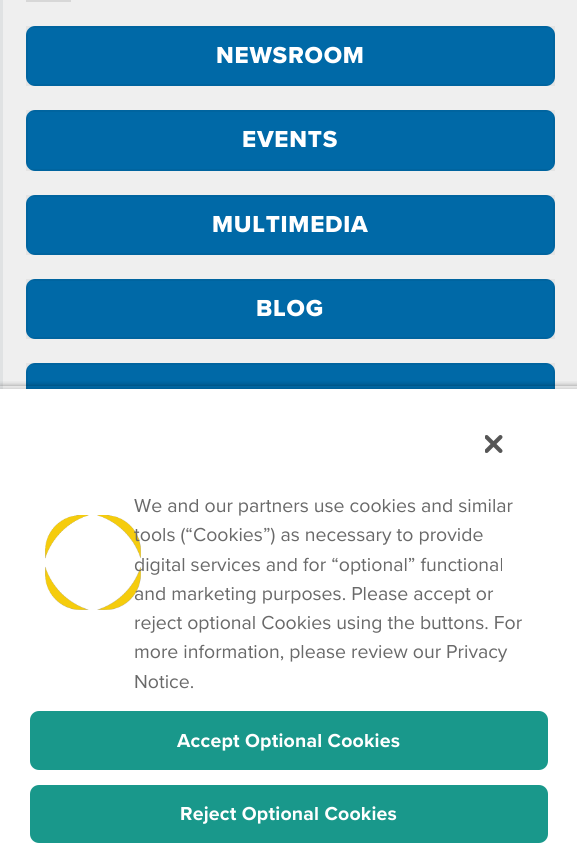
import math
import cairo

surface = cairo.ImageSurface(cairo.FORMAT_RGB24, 577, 857)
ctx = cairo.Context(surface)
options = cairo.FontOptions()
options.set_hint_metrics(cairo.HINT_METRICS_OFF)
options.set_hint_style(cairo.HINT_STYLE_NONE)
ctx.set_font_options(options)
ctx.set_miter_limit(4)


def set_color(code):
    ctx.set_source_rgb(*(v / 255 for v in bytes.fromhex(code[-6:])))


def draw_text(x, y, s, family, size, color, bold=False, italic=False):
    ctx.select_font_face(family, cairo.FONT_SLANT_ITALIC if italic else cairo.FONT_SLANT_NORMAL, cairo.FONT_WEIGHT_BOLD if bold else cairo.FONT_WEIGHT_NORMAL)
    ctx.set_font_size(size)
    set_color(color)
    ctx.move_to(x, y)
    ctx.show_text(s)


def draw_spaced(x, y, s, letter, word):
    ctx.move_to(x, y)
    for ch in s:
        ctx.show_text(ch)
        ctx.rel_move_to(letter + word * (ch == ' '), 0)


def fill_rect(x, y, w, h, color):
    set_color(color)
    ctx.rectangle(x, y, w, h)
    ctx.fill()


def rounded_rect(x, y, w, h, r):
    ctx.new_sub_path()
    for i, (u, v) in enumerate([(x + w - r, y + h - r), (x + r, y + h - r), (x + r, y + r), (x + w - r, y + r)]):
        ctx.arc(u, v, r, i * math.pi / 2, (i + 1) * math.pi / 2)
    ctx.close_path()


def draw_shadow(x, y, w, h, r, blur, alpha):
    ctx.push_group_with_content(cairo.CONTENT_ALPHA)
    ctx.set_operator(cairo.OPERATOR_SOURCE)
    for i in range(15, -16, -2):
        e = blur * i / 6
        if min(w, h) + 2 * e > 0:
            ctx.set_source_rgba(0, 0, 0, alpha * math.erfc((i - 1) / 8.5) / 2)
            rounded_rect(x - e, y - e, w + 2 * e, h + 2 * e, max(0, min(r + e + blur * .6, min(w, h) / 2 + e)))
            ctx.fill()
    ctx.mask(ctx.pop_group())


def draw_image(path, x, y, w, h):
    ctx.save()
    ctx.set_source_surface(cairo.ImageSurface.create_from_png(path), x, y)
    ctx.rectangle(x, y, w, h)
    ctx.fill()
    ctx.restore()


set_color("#efefef")
ctx.paint()
fill_rect(0, 0, 3, 389, "#e0e2e3")
fill_rect(26, 0, 45, 2, "#d7d7d7")
set_color("#0069a7")
rounded_rect(26, 26, 529, 60, 9)
ctx.fill()
ctx.rectangle(27, 27, 527, 58)
ctx.set_source_rgba(0, 0, 0, 0.05)
ctx.stroke()
ctx.select_font_face("Proxima Nova ExtraBold")
ctx.set_font_size(24)
set_color("#ffffff")
draw_spaced(216, 63, "NEWSROOM", 0.75, 0)
set_color("#0069a7")
rounded_rect(26, 110, 529, 61, 9)
ctx.fill()
ctx.rectangle(27, 111, 527, 59)
ctx.set_source_rgba(0, 0, 0, 0.05)
ctx.stroke()
set_color("#ffffff")
draw_spaced(242, 147, "EVENTS", 0.75, 0)
set_color("#0069a7")
rounded_rect(26, 195, 529, 60, 9)
ctx.fill()
ctx.rectangle(27, 196, 527, 58)
ctx.set_source_rgba(0, 0, 0, 0.05)
ctx.stroke()
set_color("#ffffff")
draw_spaced(212, 232, "MULTIMEDIA", 0.75, 0)
set_color("#0069a7")
rounded_rect(26, 279, 529, 60, 9)
ctx.fill()
ctx.rectangle(27, 280, 527, 58)
ctx.set_source_rgba(0, 0, 0, 0.05)
ctx.stroke()
set_color("#ffffff")
draw_spaced(256, 316, "BLOG", 0.75, 0)
set_color("#0069a7")
rounded_rect(26, 363, 529, 62, 9)
ctx.fill()
ctx.rectangle(27, 364, 527, 60)
ctx.set_source_rgba(0, 0, 0, 0.05)
ctx.stroke()
ctx.save()
ctx.rectangle(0, 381, 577, 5)
ctx.clip()
set_color("#000000")
draw_shadow(0, 386, 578, 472, 0, 3, 0.35)
ctx.restore()
set_color("#000000")
draw_shadow(0, 389, 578, 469, 0, 3, 0.2)
fill_rect(0, 389, 577, 468, "#ffffff")
draw_image("assets/img1.png", 485, 435, 18, 18)
draw_image("assets/img2.png", 45, 515, 96, 95)
draw_text(134, 512, "We and our partners use cookies and similar", "Proxima Nova", 19.5, "#696969")
draw_text(134, 541, "tools (“Cookies”) as necessary to provide", "Proxima Nova", 19.5, "#696969")
draw_text(134, 571, "digital services and for “optional” functional", "Proxima Nova", 19.5, "#696969")
draw_text(134, 600, "and marketing purposes. Please accept or", "Proxima Nova", 19.5, "#696969")
draw_text(134, 629, "reject optional Cookies using the buttons. For", "Proxima Nova", 19.5, "#696969")
draw_text(134, 658, "more information, please review our Privacy", "Proxima Nova", 19.5, "#696969")
draw_text(134, 688, "Notice.", "Proxima Nova", 19.5, "#696969")
set_color("#19988b")
rounded_rect(31, 712, 516, 57, 8)
ctx.fill_preserve()
ctx.stroke()
ctx.select_font_face("Proxima Nova", cairo.FONT_SLANT_NORMAL, cairo.FONT_WEIGHT_BOLD)
set_color("#ffffff")
draw_spaced(177, 747, "Accept Optional Cookies", 0.2, 0)
set_color("#19988b")
rounded_rect(31, 786, 516, 56, 8)
ctx.fill_preserve()
ctx.stroke()
set_color("#ffffff")
draw_spaced(180, 820, "Reject Optional Cookies", 0.2, 0)
surface.write_to_png("output.png")
